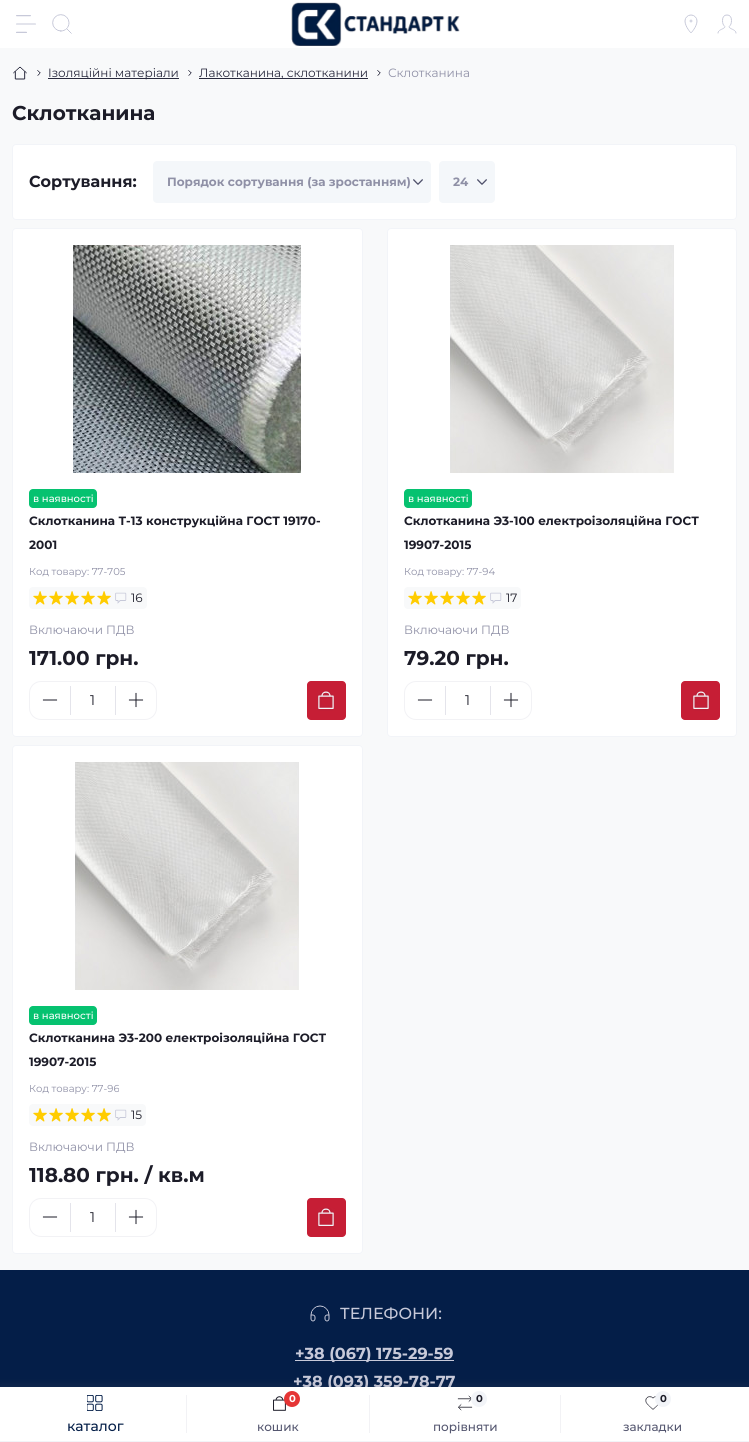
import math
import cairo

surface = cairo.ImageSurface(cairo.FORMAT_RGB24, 749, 1442)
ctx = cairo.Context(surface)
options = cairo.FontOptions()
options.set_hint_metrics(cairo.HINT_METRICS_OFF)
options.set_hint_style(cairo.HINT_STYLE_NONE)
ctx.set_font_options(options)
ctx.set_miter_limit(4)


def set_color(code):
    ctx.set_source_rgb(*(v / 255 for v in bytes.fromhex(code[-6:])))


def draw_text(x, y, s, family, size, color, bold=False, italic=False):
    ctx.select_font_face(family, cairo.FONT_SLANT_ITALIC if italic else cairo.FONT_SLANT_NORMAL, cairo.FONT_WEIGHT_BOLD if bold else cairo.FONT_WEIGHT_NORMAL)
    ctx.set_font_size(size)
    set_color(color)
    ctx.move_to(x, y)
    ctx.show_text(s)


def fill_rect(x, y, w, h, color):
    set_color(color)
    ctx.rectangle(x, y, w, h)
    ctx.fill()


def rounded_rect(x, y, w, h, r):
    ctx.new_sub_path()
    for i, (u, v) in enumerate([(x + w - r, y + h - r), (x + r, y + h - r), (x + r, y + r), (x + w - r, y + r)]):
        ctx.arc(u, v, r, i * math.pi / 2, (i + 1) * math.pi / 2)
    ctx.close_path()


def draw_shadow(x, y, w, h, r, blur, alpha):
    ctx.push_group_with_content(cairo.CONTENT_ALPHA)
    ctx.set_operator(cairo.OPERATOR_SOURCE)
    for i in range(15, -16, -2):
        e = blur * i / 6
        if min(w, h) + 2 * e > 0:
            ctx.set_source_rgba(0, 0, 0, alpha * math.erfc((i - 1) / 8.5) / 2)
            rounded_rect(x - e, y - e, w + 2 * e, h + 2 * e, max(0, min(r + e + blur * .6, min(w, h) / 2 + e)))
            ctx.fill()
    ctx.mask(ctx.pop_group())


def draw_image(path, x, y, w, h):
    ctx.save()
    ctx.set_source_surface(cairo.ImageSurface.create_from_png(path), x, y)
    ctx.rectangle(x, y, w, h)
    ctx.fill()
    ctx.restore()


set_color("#f8f9fa")
ctx.paint()
fill_rect(0, 0, 749, 48, "#ffffff")
draw_image("assets/img1.png", 16, 15, 20, 18)
draw_image("assets/img2.png", 52, 14, 20, 20)
draw_image("assets/img3.png", 291, 2, 169, 44)
draw_image("assets/img4.png", 684, 14, 14, 19)
draw_image("assets/img5.png", 717, 14, 20, 20)
draw_image("assets/img6.png", 13, 66, 14, 14)
draw_image("assets/img7.png", 37, 70, 4, 6)
fill_rect(48, 78, 131, 1, "#28293d")
draw_text(48, 77, "Ізоляційні матеріали", "Montserrat", 12, "#28293d")
draw_image("assets/img7.png", 188, 70, 4, 6)
fill_rect(199, 78, 169, 1, "#28293d")
draw_text(199, 77, "Лакотканина, склотканини", "Montserrat", 12, "#28293d")
draw_image("assets/img7.png", 377, 70, 4, 6)
draw_text(388, 77, "Склотканина", "Montserrat", 12, "#8f90a6")
draw_text(12, 120, "Склотканина", "Montserrat", 20, "#1c1c28", bold=True)
set_color("#ffffff")
rounded_rect(12.5, 144.5, 724, 75, 3.5)
ctx.fill_preserve()
set_color("#f2f4f8")
ctx.set_line_width(1)
ctx.stroke()
draw_text(29, 187, "Сортування:", "Montserrat", 16, "#1c1c28", bold=True)
set_color("#f4f7fa")
rounded_rect(153, 161, 278, 42, 4)
ctx.fill()
draw_image("assets/img8.png", 413, 179, 10, 6)
draw_text(167, 186, "Порядок сортування (за зростанням)", "Montserrat", 12, "#8f90a6", bold=True)
set_color("#f4f7fa")
rounded_rect(439, 161, 56, 42, 4)
ctx.fill()
draw_image("assets/img8.png", 477, 179, 10, 6)
draw_text(453, 186, "24", "Montserrat", 12, "#8f90a6", bold=True)
set_color("#ffffff")
rounded_rect(12.5, 228.5, 350, 508, 3.5)
ctx.fill_preserve()
set_color("#f2f4f8")
ctx.stroke()
draw_image("assets/img9.png", 73, 245, 228, 228)
set_color("#06c270")
rounded_rect(29, 489, 68, 19, 4)
ctx.fill()
draw_text(33, 502, "в наявності", "Montserrat Medium", 10, "#ffffff")
draw_text(29, 525, "Склотканина Т-13 конструкційна ГОСТ 19170-", "Montserrat", 12, "#1c1c28", bold=True)
draw_text(29, 549, "2001", "Montserrat", 12, "#1c1c28", bold=True)
draw_text(29, 575, "Код товару: 77-705", "Montserrat", 10, "#8f90a6")
set_color("#f8f9fa")
rounded_rect(29, 587, 118, 22, 4)
ctx.fill()
draw_image("assets/img10.png", 33, 591, 14, 14)
draw_image("assets/img10.png", 49, 591, 14, 14)
draw_image("assets/img10.png", 65, 591, 14, 14)
draw_image("assets/img10.png", 81, 591, 14, 14)
draw_image("assets/img10.png", 97, 591, 14, 14)
draw_image("assets/img11.png", 115, 592, 12, 12)
draw_text(131, 602, "16", "Montserrat", 12, "#1c1c28")
draw_text(29, 634, "Включаючи ПДВ", "Montserrat", 12, "#8f90a6")
draw_text(29, 665, "171.00 грн.", "Montserrat", 20, "#1c1c28", bold=True)
rounded_rect(29.5, 681.5, 127, 38, 11.5)
set_color("#f2f2f5")
ctx.stroke()
draw_image("assets/img12.png", 42, 699, 16, 2)
fill_rect(115, 686, 1, 29, "#e4e4eb")
fill_rect(70, 686, 1, 29, "#e4e4eb")
draw_text(90, 705, "1", "Montserrat", 14, "#1c1c28")
draw_image("assets/img13.png", 128, 692, 16, 16)
set_color("#c61e35")
rounded_rect(307, 681, 39, 39, 4)
ctx.fill()
draw_image("assets/img14.png", 317, 690, 18, 21)
set_color("#ffffff")
rounded_rect(387.5, 228.5, 349, 508, 3.5)
ctx.fill_preserve()
set_color("#f2f4f8")
ctx.stroke()
draw_image("assets/img15.png", 450, 245, 224, 228)
set_color("#06c270")
rounded_rect(404, 489, 68, 19, 4)
ctx.fill()
draw_text(408, 502, "в наявності", "Montserrat Medium", 10, "#ffffff")
draw_text(404, 525, "Склотканина Э3-100 електроізоляційна ГОСТ", "Montserrat", 12, "#1c1c28", bold=True)
draw_text(404, 549, "19907-2015", "Montserrat", 12, "#1c1c28", bold=True)
draw_text(404, 575, "Код товару: 77-94", "Montserrat", 10, "#8f90a6")
set_color("#f8f9fa")
rounded_rect(404, 587, 117, 22, 4)
ctx.fill()
draw_image("assets/img10.png", 408, 591, 14, 14)
draw_image("assets/img10.png", 424, 591, 14, 14)
draw_image("assets/img10.png", 440, 591, 14, 14)
draw_image("assets/img10.png", 456, 591, 14, 14)
draw_image("assets/img10.png", 472, 591, 14, 14)
draw_image("assets/img11.png", 490, 592, 12, 12)
draw_text(506, 602, "17", "Montserrat", 12, "#1c1c28")
draw_text(404, 634, "Включаючи ПДВ", "Montserrat", 12, "#8f90a6")
draw_text(404, 665, "79.20 грн.", "Montserrat", 20, "#1c1c28", bold=True)
rounded_rect(404.5, 681.5, 127, 38, 11.5)
set_color("#f2f2f5")
ctx.stroke()
draw_image("assets/img12.png", 417, 699, 16, 2)
fill_rect(490, 686, 1, 29, "#e4e4eb")
fill_rect(445, 686, 1, 29, "#e4e4eb")
draw_text(465, 705, "1", "Montserrat", 14, "#1c1c28")
draw_image("assets/img13.png", 503, 692, 16, 16)
set_color("#c61e35")
rounded_rect(681, 681, 39, 39, 4)
ctx.fill()
draw_image("assets/img14.png", 692, 690, 18, 21)
set_color("#ffffff")
rounded_rect(12.5, 745.5, 350, 508, 3.5)
ctx.fill_preserve()
set_color("#f2f4f8")
ctx.stroke()
draw_image("assets/img15.png", 75, 762, 224, 228)
set_color("#06c270")
rounded_rect(29, 1006, 68, 19, 4)
ctx.fill()
draw_text(33, 1019, "в наявності", "Montserrat Medium", 10, "#ffffff")
draw_text(29, 1042, "Склотканина Э3-200 електроізоляційна ГОСТ", "Montserrat", 12, "#1c1c28", bold=True)
draw_text(29, 1066, "19907-2015", "Montserrat", 12, "#1c1c28", bold=True)
draw_text(29, 1092, "Код товару: 77-96", "Montserrat", 10, "#8f90a6")
set_color("#f8f9fa")
rounded_rect(29, 1104, 117, 22, 4)
ctx.fill()
draw_image("assets/img10.png", 33, 1108, 14, 14)
draw_image("assets/img10.png", 49, 1108, 14, 14)
draw_image("assets/img10.png", 65, 1108, 14, 14)
draw_image("assets/img10.png", 81, 1108, 14, 14)
draw_image("assets/img10.png", 97, 1108, 14, 14)
draw_image("assets/img11.png", 115, 1109, 12, 12)
draw_text(131, 1119, "15", "Montserrat", 12, "#1c1c28")
draw_text(29, 1151, "Включаючи ПДВ", "Montserrat", 12, "#8f90a6")
draw_text(29, 1182, "118.80 грн. / кв.м", "Montserrat", 20, "#1c1c28", bold=True)
rounded_rect(29.5, 1198.5, 127, 38, 11.5)
set_color("#f2f2f5")
ctx.stroke()
draw_image("assets/img12.png", 42, 1216, 16, 2)
fill_rect(115, 1203, 1, 29, "#e4e4eb")
fill_rect(70, 1203, 1, 29, "#e4e4eb")
draw_text(90, 1222, "1", "Montserrat", 14, "#1c1c28")
draw_image("assets/img13.png", 128, 1209, 16, 16)
set_color("#c61e35")
rounded_rect(307, 1198, 39, 39, 4)
ctx.fill()
draw_image("assets/img14.png", 317, 1207, 18, 21)
fill_rect(0, 1270, 749, 117, "#041e48")
draw_image("assets/img16.png", 310, 1305, 20, 17)
draw_text(340, 1319, "ТЕЛЕФОНИ:", "Montserrat Medium", 16, "#c7c9d9")
fill_rect(295, 1360, 159, 1, "#c7c9d9")
draw_text(295, 1359, "+38 (067) 175-29-59", "Montserrat", 16, "#c7c9d9", bold=True)
draw_text(293, 1387, "+38 (093) 359-78-77", "Montserrat", 16, "#c7c9d9", bold=True)
set_color("#606170")
draw_shadow(0, 1385, 749, 55, 0, 4, 0.16)
fill_rect(0, 1387, 749, 54, "#ffffff")
fill_rect(0, 1441, 749, 1, "#f2f4f8")
draw_image("assets/img17.png", 87, 1395, 16, 16)
draw_text(67, 1431, "каталог", "Montserrat Medium", 14, "#041e48")
fill_rect(186, 1395, 1, 38, "#f2f2f5")
draw_image("assets/img18.png", 273, 1396, 13, 15)
set_color("#e53535")
ctx.arc(292, 1399, 8, 0, 2 * math.pi)
ctx.fill()
draw_text(289, 1402, "0", "Montserrat", 10, "#ffffff", bold=True)
draw_text(257, 1431, "кошик", "Montserrat Medium", 12, "#555770")
fill_rect(369, 1395, 1, 38, "#f2f2f5")
draw_image("assets/img19.png", 457, 1395, 16, 16)
set_color("#f2f4f8")
ctx.arc(479, 1399, 8, 0, 2 * math.pi)
ctx.fill()
draw_text(476, 1402, "0", "Montserrat", 10, "#1c1c28", bold=True)
draw_text(433, 1431, "порівняти", "Montserrat Medium", 12, "#555770")
fill_rect(560, 1395, 1, 38, "#f2f2f5")
draw_image("assets/img20.png", 645, 1396, 13, 14)
set_color("#f2f4f8")
ctx.arc(663, 1399, 8, 0, 2 * math.pi)
ctx.fill()
draw_text(660, 1402, "0", "Montserrat", 10, "#1c1c28", bold=True)
draw_text(623, 1431, "закладки", "Montserrat Medium", 12, "#555770")
surface.write_to_png("output.png")
